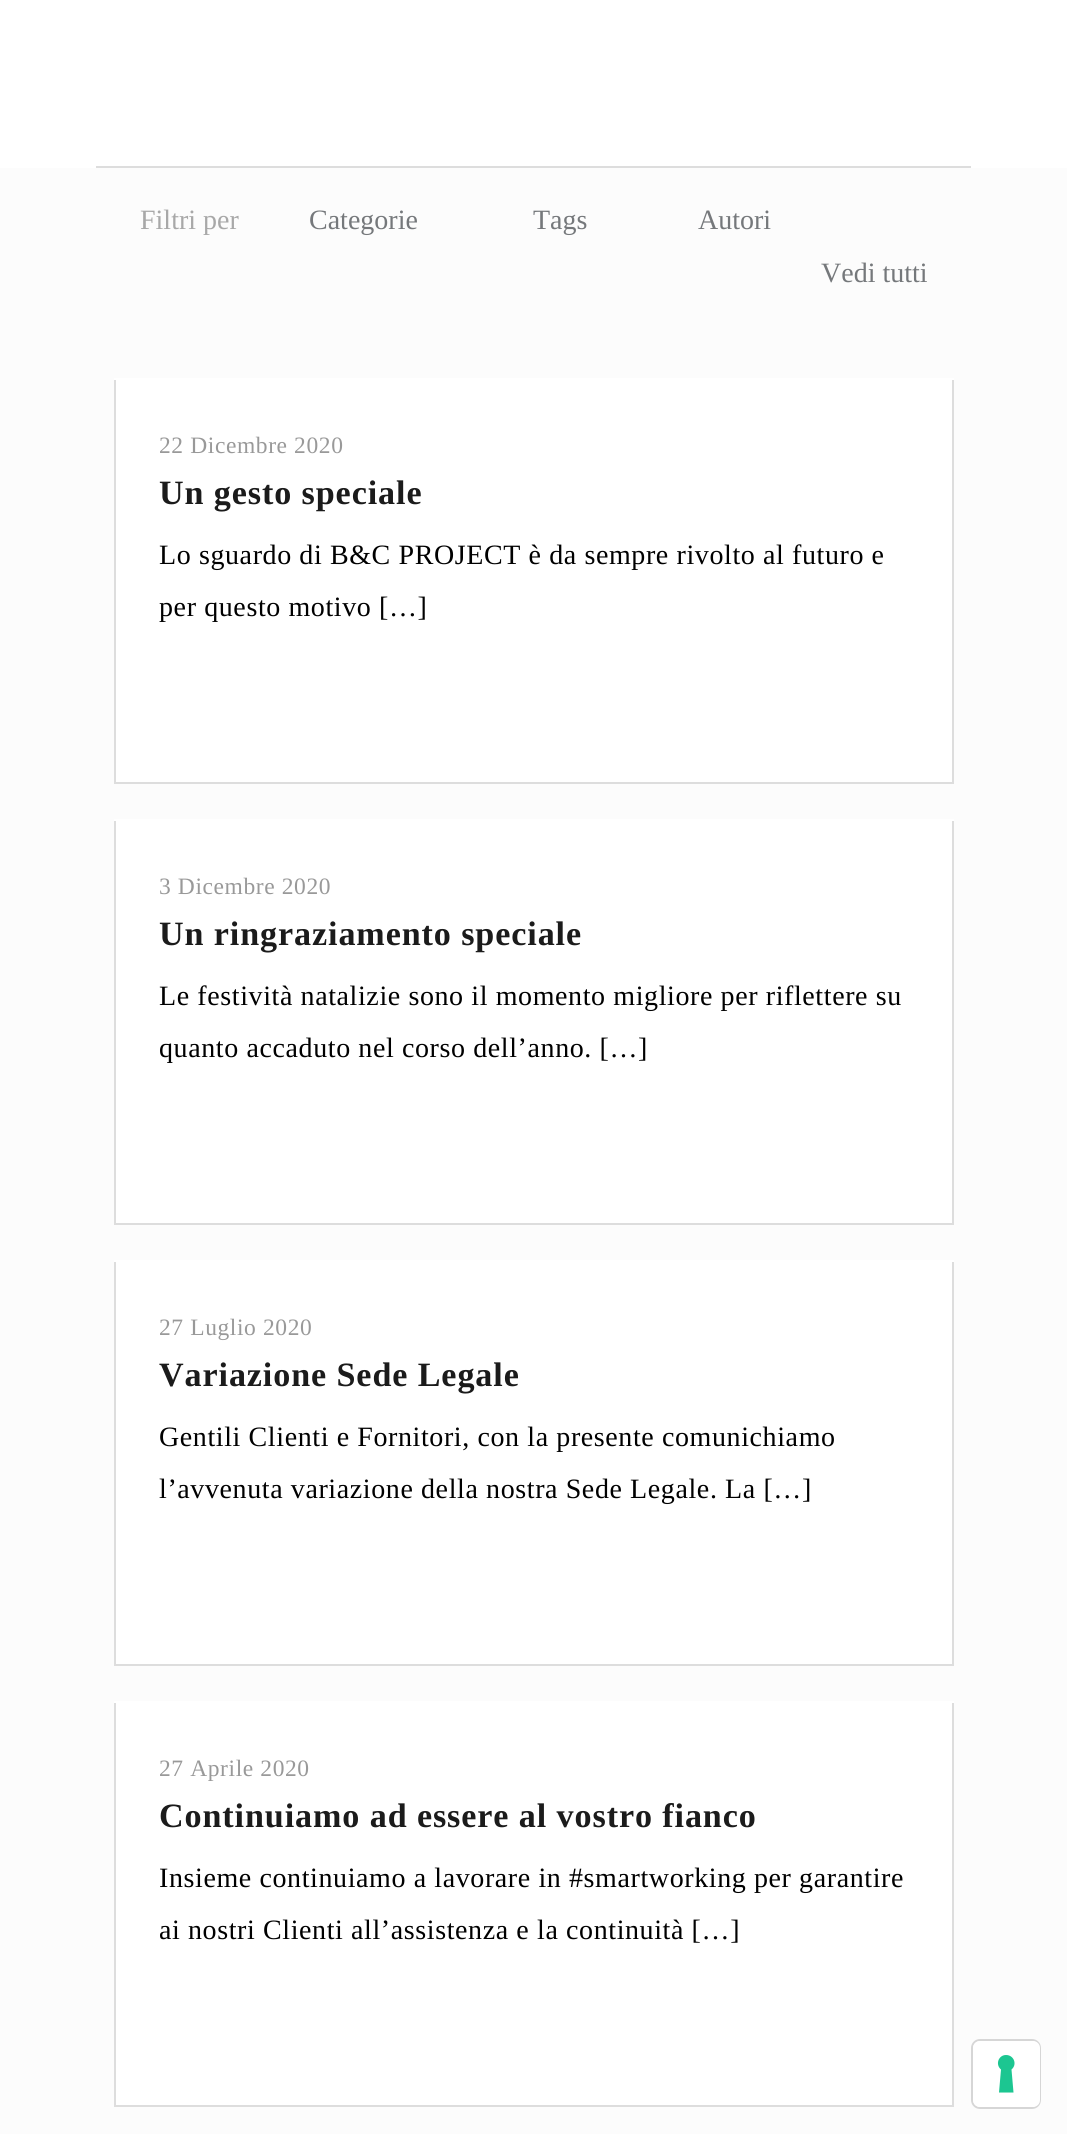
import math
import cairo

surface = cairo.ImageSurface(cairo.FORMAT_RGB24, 1067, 2134)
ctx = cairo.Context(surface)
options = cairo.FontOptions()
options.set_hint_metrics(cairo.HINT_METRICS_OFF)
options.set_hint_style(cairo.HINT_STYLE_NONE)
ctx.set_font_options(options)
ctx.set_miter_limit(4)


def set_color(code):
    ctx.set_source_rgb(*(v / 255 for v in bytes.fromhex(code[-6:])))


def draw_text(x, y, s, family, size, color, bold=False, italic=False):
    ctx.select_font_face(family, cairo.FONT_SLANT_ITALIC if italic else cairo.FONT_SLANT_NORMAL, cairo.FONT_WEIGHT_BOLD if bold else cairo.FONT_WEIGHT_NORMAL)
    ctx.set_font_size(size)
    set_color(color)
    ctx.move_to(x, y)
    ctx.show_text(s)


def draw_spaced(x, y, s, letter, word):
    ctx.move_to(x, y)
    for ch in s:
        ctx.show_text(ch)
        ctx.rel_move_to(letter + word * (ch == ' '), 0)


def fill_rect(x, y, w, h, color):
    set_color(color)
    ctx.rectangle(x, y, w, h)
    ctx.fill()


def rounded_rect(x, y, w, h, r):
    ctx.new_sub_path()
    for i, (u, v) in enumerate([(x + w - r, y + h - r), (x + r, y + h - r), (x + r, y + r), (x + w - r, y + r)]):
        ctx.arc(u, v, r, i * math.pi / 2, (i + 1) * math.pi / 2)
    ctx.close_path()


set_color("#fcfcfc")
ctx.paint()
fill_rect(0, 0, 1067, 168, "#ffffff")
fill_rect(96, 166, 875, 2, "#dddddd")
draw_text(140, 229, "Filtri per", "Liberation Serif", 28, "#a8a8a8")
draw_text(309, 229, "Categorie", "Liberation Serif", 28, "#75787b")
draw_text(533, 229, "Tags", "Liberation Serif", 28, "#75787b")
draw_text(698, 229, "Autori", "Liberation Serif", 28, "#75787b")
draw_text(821, 282, "Vedi tutti", "Liberation Serif", 28, "#75787b")
fill_rect(114, 378, 840, 404, "#ffffff")
fill_rect(952, 380, 2, 404, "#dddddd")
fill_rect(114, 782, 840, 2, "#dddddd")
fill_rect(114, 380, 2, 404, "#dddddd")
ctx.set_font_size(23.5)
set_color("#999999")
draw_spaced(159, 453, "22 Dicembre 2020", 0.6, 0)
ctx.select_font_face("Liberation Serif", cairo.FONT_SLANT_NORMAL, cairo.FONT_WEIGHT_BOLD)
ctx.set_font_size(34.1)
set_color("#1b1b1b")
draw_spaced(159, 504, "Un gesto speciale", 0.9, 0)
ctx.select_font_face("Liberation Serif")
ctx.set_font_size(28)
set_color("#000000")
draw_spaced(159, 564, "Lo sguardo di B&C PROJECT è da sempre rivolto al futuro e", 0.6, 0)
draw_spaced(159, 616, "per questo motivo […]", 0.6, 0)
fill_rect(114, 819, 840, 404, "#ffffff")
fill_rect(952, 821, 2, 404, "#dddddd")
fill_rect(114, 1223, 840, 2, "#dddddd")
fill_rect(114, 821, 2, 404, "#dddddd")
ctx.set_font_size(23.5)
set_color("#999999")
draw_spaced(159, 894, "3 Dicembre 2020", 0.6, 0)
ctx.select_font_face("Liberation Serif", cairo.FONT_SLANT_NORMAL, cairo.FONT_WEIGHT_BOLD)
ctx.set_font_size(34.1)
set_color("#1b1b1b")
draw_spaced(159, 945, "Un ringraziamento speciale", 0.9, 0)
ctx.select_font_face("Liberation Serif")
ctx.set_font_size(28)
set_color("#000000")
draw_spaced(159, 1005, "Le festività natalizie sono il momento migliore per riflettere su", 0.6, 0)
draw_spaced(159, 1057, "quanto accaduto nel corso dell’anno. […]", 0.6, 0)
fill_rect(114, 1260, 840, 404, "#ffffff")
fill_rect(952, 1262, 2, 404, "#dddddd")
fill_rect(114, 1664, 840, 2, "#dddddd")
fill_rect(114, 1262, 2, 404, "#dddddd")
ctx.set_font_size(23.5)
set_color("#999999")
draw_spaced(159, 1335, "27 Luglio 2020", 0.6, 0)
ctx.select_font_face("Liberation Serif", cairo.FONT_SLANT_NORMAL, cairo.FONT_WEIGHT_BOLD)
ctx.set_font_size(34.1)
set_color("#1b1b1b")
draw_spaced(159, 1386, "Variazione Sede Legale", 0.9, 0)
ctx.select_font_face("Liberation Serif")
ctx.set_font_size(28)
set_color("#000000")
draw_spaced(159, 1446, "Gentili Clienti e Fornitori, con la presente comunichiamo", 0.6, 0)
draw_spaced(159, 1498, "l’avvenuta variazione della nostra Sede Legale. La […]", 0.6, 0)
fill_rect(114, 1701, 840, 404, "#ffffff")
fill_rect(952, 1703, 2, 404, "#dddddd")
fill_rect(114, 2105, 840, 2, "#dddddd")
fill_rect(114, 1703, 2, 404, "#dddddd")
ctx.set_font_size(23.5)
set_color("#999999")
draw_spaced(159, 1776, "27 Aprile 2020", 0.6, 0)
ctx.select_font_face("Liberation Serif", cairo.FONT_SLANT_NORMAL, cairo.FONT_WEIGHT_BOLD)
ctx.set_font_size(34.1)
set_color("#1b1b1b")
draw_spaced(159, 1827, "Continuiamo ad essere al vostro fianco", 0.9, 0)
ctx.select_font_face("Liberation Serif")
ctx.set_font_size(28)
set_color("#000000")
draw_spaced(159, 1887, "Insieme continuiamo a lavorare in #smartworking per garantire", 0.6, 0)
draw_spaced(159, 1939, "ai nostri Clienti all’assistenza e la continuità […]", 0.6, 0)
rounded_rect(972, 2040, 68, 68, 8)
set_color("#d6d6d6")
ctx.stroke()
set_color("#ffffff")
rounded_rect(973, 2041, 67, 66, 7)
ctx.fill()
set_color("#1cc691")
ctx.set_fill_rule(cairo.FILL_RULE_EVEN_ODD)
ctx.new_path()
ctx.move_to(1006, 2055)
ctx.curve_to(1014, 2055, 1017.5, 2064.5, 1011.5, 2069.5)
ctx.line_to(1013.5, 2092.5)
ctx.line_to(999, 2092.5)
ctx.line_to(1001, 2069.5)
ctx.curve_to(995, 2064.5, 998.5, 2055, 1006, 2055)
ctx.close_path()
ctx.fill()
surface.write_to_png("output.png")
